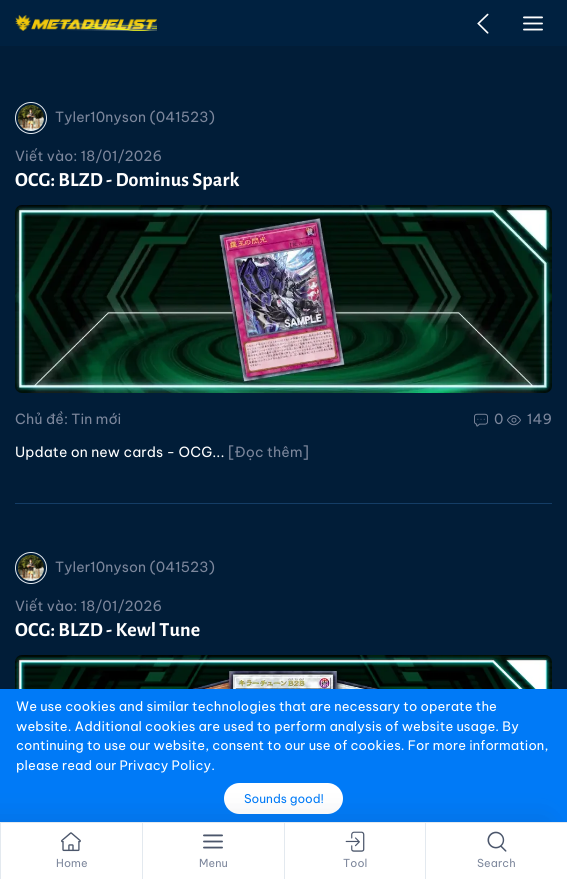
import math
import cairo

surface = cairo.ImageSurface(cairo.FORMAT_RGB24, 567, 879)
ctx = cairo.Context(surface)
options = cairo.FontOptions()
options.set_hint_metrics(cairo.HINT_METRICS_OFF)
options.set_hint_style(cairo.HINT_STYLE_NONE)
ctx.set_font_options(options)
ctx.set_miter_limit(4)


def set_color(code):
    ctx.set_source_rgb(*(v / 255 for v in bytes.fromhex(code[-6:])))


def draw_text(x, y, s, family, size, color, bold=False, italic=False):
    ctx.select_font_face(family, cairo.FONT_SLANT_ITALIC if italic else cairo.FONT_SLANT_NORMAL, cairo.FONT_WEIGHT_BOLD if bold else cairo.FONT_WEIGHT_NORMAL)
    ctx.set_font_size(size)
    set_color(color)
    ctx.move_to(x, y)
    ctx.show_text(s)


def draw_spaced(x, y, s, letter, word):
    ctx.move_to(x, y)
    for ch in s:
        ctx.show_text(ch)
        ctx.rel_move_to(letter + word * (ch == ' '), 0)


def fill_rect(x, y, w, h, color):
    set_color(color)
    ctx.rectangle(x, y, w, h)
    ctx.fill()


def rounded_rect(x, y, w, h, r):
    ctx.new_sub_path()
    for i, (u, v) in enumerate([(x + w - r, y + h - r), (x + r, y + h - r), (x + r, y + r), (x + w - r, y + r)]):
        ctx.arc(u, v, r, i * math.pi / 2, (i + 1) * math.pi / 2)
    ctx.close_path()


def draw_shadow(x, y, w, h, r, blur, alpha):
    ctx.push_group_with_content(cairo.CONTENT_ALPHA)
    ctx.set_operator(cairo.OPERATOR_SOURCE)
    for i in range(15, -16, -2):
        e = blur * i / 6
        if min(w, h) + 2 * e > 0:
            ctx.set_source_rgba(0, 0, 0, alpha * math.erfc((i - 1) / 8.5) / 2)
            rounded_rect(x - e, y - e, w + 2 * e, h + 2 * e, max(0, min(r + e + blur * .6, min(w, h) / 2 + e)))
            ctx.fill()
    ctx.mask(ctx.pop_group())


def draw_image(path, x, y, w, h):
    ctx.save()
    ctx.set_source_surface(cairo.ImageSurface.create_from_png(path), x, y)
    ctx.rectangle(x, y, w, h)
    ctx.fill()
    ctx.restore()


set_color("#011d38")
ctx.paint()
fill_rect(0, 0, 567, 46, "#002140")
draw_image("assets/img1.png", 15, 15, 142, 16)
draw_image("assets/img2.png", 44, 21, 113, 10)
draw_image("assets/img3.png", 477, 13, 12, 21)
draw_image("assets/img4.png", 523, 16, 20, 15)
fill_rect(15, 503, 537, 1, "#143d66")
ctx.arc(31, 118, 15.5, 0, 2 * math.pi)
set_color("#e3e9ef")
ctx.set_line_width(1)
ctx.stroke()
draw_image("assets/img5.png", 18, 105, 26, 26)
ctx.select_font_face("Be Vietnam Pro")
ctx.set_font_size(14)
set_color("#7d879c")
draw_spaced(55, 122, "Tyler10nyson (041523)", 0.1, 0)
draw_spaced(15, 161, "Viết vào: 18/01/2026", 0.1, 0)
ctx.select_font_face("Alegreya Sans", cairo.FONT_SLANT_NORMAL, cairo.FONT_WEIGHT_BOLD)
ctx.set_font_size(20)
set_color("#ffffff")
draw_spaced(15, 186, "OCG: BLZD - Dominus Spark", 0.1, 0)
draw_image("assets/img6.png", 15, 205, 537, 188)
ctx.select_font_face("Be Vietnam Pro")
ctx.set_font_size(14)
set_color("#7d879c")
draw_spaced(15, 424, "Chủ đề: Tin mới", 0.1, 0)
draw_image("assets/img7.png", 474, 413, 14, 14)
draw_spaced(494, 424, "0", 0.1, 0)
draw_image("assets/img8.png", 507, 415, 14, 11)
draw_spaced(527, 424, "149", 0.1, 0)
set_color("#ffffff")
draw_spaced(15, 457, "Update on new cards - OCG...", 0.1, 0)
set_color("#7d879c")
draw_spaced(228, 457, "[Đọc thêm]", 0.1, 0)
ctx.new_path()
ctx.arc(31, 568, 15.5, 0, 2 * math.pi)
set_color("#e3e9ef")
ctx.stroke()
draw_image("assets/img9.png", 18, 555, 26, 26)
set_color("#7d879c")
draw_spaced(55, 572, "Tyler10nyson (041523)", 0.1, 0)
draw_spaced(15, 611, "Viết vào: 18/01/2026", 0.1, 0)
ctx.select_font_face("Alegreya Sans", cairo.FONT_SLANT_NORMAL, cairo.FONT_WEIGHT_BOLD)
ctx.set_font_size(20)
set_color("#ffffff")
draw_spaced(15, 636, "OCG: BLZD - Kewl Tune", 0.1, 0)
draw_image("assets/img10.png", 15, 655, 537, 34)
fill_rect(0, 689, 567, 133, "#007af7")
set_color("#ffffff")
rounded_rect(224, 783, 119, 31, 15.5)
ctx.fill()
set_color("#2b3445")
draw_shadow(-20, 822, 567, 57, 0, 16, 0.15)
fill_rect(1, 823, 566, 56, "#ffffff")
fill_rect(0, 822, 567, 1, "#e3e9ef")
fill_rect(0, 823, 1, 56, "#e3e9ef")
draw_image("assets/img11.png", 61, 832, 20, 20)
ctx.select_font_face("Be Vietnam Pro")
ctx.set_font_size(11)
set_color("#7d879c")
draw_spaced(56, 867, "Home", 0.1, 0)
fill_rect(142, 823, 1, 56, "#e3e9ef")
draw_image("assets/img12.png", 203, 834, 20, 15)
set_color("#7d879c")
draw_spaced(199, 867, "Menu", 0.1, 0)
fill_rect(284, 823, 1, 56, "#e3e9ef")
draw_image("assets/img13.png", 345, 831, 20, 21)
set_color("#7d879c")
draw_spaced(343, 867, "Tool", 0.1, 0)
fill_rect(425, 823, 1, 56, "#e3e9ef")
draw_image("assets/img14.png", 487, 831, 20, 21)
set_color("#7d879c")
draw_spaced(477, 867, "Search", 0.1, 0)
ctx.set_font_size(13)
set_color("#ffffff")
draw_spaced(16, 711, "We use cookies and similar technologies that are necessary to operate the", 0.1, 0)
draw_spaced(16, 731, "website. Additional cookies are used to perform analysis of website usage. By", 0.1, 0)
draw_spaced(16, 750, "continuing to use our website, consent to our use of cookies. For more information,", 0.1, 0)
draw_spaced(16, 770, "please read our Privacy Policy.", 0.1, 0)
draw_text(244, 803, "Sounds good!", "Be Vietnam Pro", 12, "#007af7")
surface.write_to_png("output.png")
